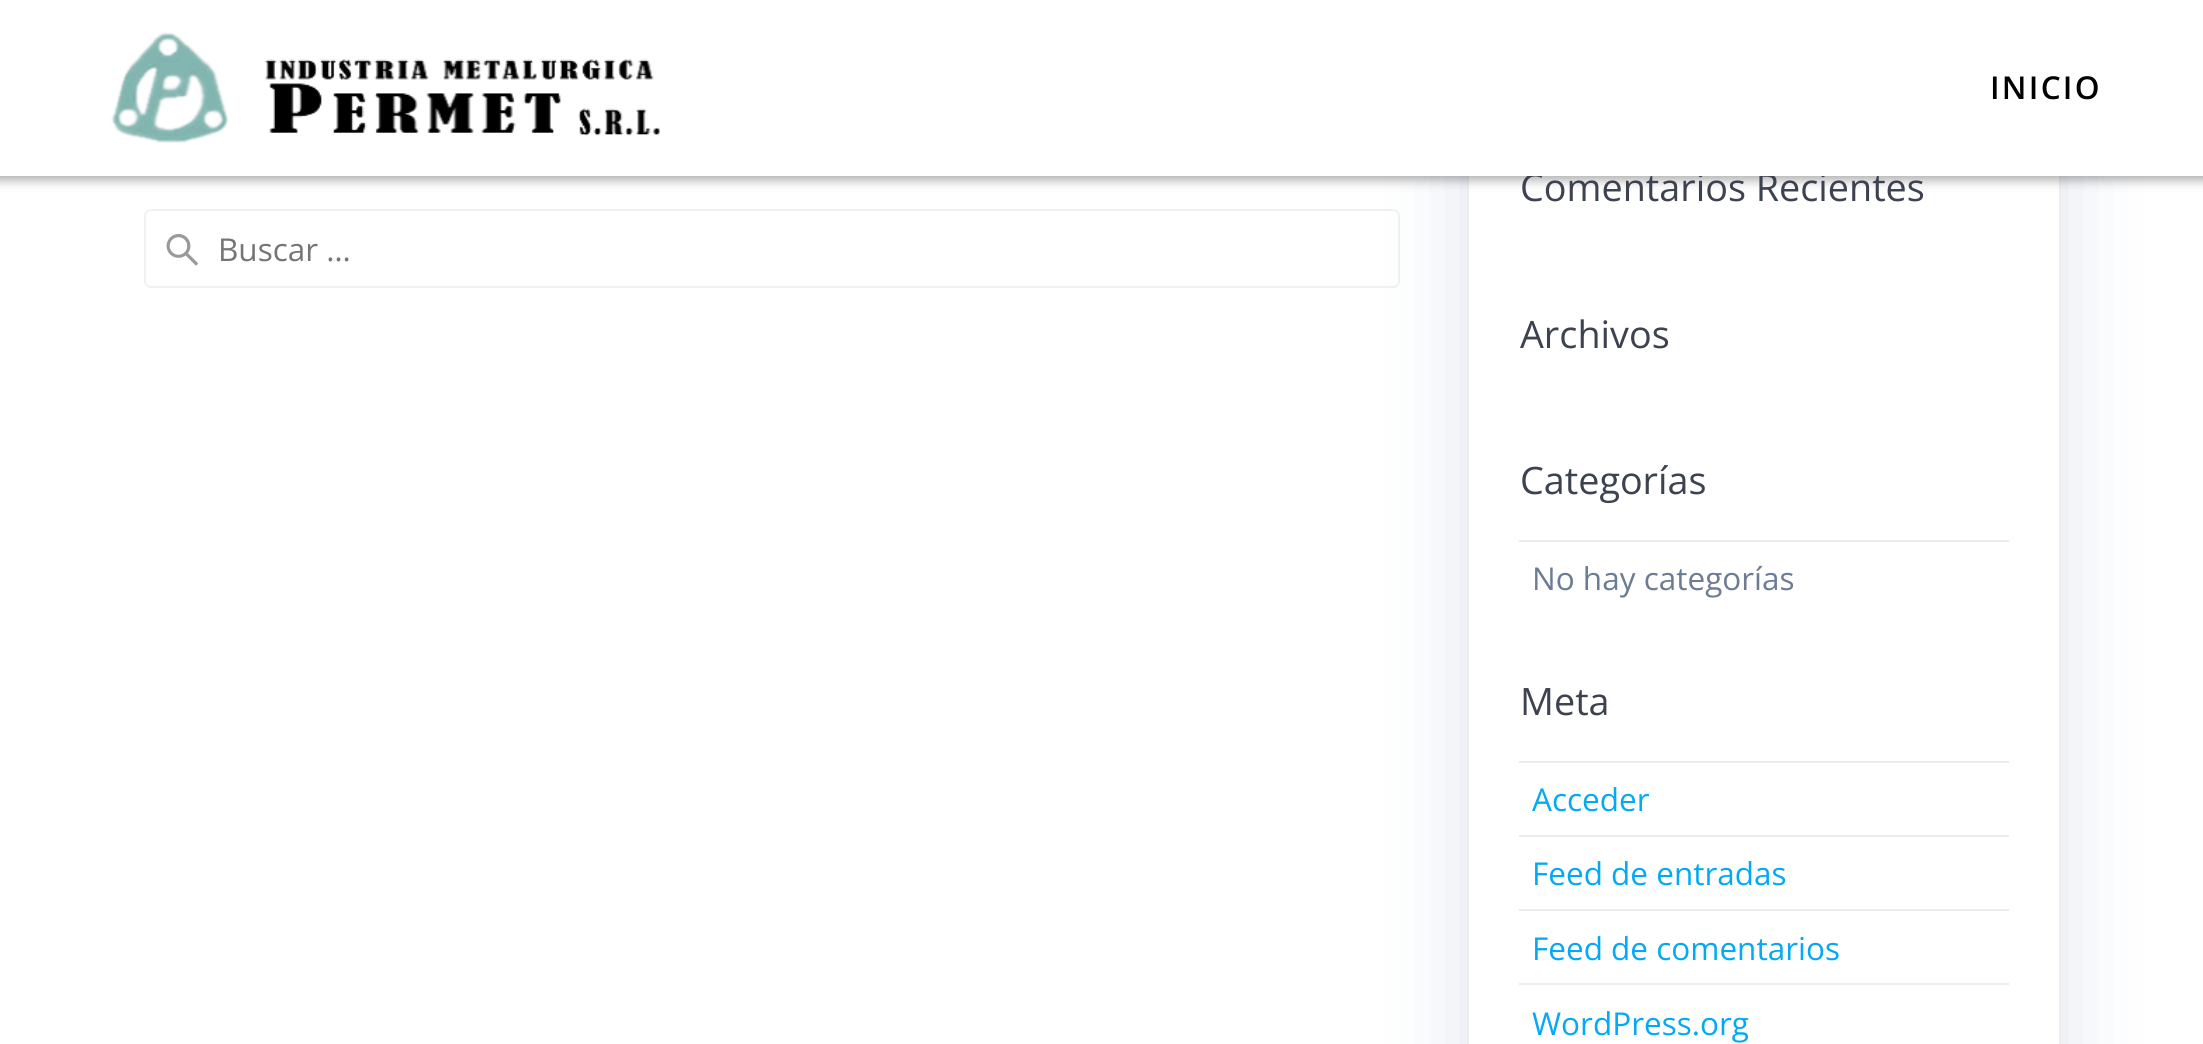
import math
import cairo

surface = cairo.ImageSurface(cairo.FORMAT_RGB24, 2203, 1044)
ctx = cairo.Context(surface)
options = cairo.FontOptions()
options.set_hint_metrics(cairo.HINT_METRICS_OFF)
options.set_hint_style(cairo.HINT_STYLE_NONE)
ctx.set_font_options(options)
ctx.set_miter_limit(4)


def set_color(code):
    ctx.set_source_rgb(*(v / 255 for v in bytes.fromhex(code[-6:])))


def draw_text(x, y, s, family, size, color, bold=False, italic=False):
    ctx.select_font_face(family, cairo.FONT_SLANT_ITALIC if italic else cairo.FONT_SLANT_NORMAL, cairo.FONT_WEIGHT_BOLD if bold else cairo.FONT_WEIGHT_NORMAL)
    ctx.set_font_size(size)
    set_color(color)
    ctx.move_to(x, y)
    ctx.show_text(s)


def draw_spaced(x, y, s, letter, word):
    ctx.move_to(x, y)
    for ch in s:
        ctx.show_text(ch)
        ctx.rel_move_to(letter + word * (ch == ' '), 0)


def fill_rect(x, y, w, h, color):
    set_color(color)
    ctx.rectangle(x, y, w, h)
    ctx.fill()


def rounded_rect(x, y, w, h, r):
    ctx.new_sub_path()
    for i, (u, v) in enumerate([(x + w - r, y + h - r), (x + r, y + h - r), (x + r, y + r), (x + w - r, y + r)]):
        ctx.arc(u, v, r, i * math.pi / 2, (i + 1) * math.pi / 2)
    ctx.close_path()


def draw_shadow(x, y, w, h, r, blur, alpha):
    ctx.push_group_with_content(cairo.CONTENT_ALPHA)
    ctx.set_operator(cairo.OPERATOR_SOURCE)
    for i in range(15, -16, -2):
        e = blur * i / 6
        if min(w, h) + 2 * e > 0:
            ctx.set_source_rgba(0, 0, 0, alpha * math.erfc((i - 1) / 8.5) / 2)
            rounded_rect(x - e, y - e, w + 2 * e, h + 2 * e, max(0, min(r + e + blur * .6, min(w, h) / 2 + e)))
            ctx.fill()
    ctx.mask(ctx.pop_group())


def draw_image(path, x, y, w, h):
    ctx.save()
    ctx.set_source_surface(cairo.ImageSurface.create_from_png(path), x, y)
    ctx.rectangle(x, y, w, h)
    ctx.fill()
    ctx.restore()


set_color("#ffffff")
ctx.paint()
draw_image("assets/img2.png", 166, 234, 32, 32)
rounded_rect(145, 210, 1254, 77, 6)
set_color("#f1f1f1")
ctx.stroke()
ctx.save()
ctx.set_fill_rule(cairo.FILL_RULE_EVEN_ODD)
ctx.new_path()
ctx.move_to(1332, 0)
ctx.line_to(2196, 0)
ctx.line_to(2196, 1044)
ctx.line_to(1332, 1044)
ctx.close_path()
ctx.move_to(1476, -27)
ctx.line_to(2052, -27)
ctx.curve_to(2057, -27, 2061, -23, 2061, -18)
ctx.line_to(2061, 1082)
ctx.curve_to(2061, 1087, 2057, 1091, 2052, 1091)
ctx.line_to(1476, 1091)
ctx.curve_to(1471, 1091, 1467, 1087, 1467, 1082)
ctx.line_to(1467, -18)
ctx.curve_to(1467, -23, 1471, -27, 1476, -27)
ctx.close_path()
ctx.clip()
set_color("#234598")
draw_shadow(1467, -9, 594, 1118, 9, 44.5, 0.15)
ctx.restore()
ctx.rectangle(1468, -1, 592, 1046)
set_color("#ececec")
ctx.stroke()
set_color("#000000")
draw_shadow(-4, -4, 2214, 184, 0, 5.5, 0.33)
draw_text(1520, 201, "Comentarios Recientes", "Open Sans", 37.75, "#3c424f")
fill_rect(0, 0, 2203, 176, "#ffffff")
draw_image("assets/img1.png", 111, 32, 549, 111)
ctx.select_font_face("Open Sans SemiBold")
ctx.set_font_size(31.5)
set_color("#000000")
draw_spaced(1990, 99, "INICIO", 2.25, 0)
draw_text(218, 261, "Buscar …", "Open Sans", 31.5, "#757575")
draw_text(1520, 348, "Archivos", "Open Sans", 37.75, "#3c424f")
draw_text(1520, 494, "Categorías", "Open Sans", 37.75, "#3c424f")
fill_rect(1519, 540, 490, 2, "#ececec")
draw_text(1532, 590, "No hay categorías", "Open Sans", 31.5, "#6b7c93")
draw_text(1520, 715, "Meta", "Open Sans", 37.75, "#3c424f")
fill_rect(1519, 761, 490, 2, "#ececec")
draw_text(1532, 811, "Acceder", "Open Sans", 31.5, "#03a9f4")
fill_rect(1519, 835, 490, 2, "#ececec")
draw_text(1532, 885, "Feed de entradas", "Open Sans", 31.5, "#03a9f4")
fill_rect(1519, 909, 490, 2, "#ececec")
draw_text(1532, 960, "Feed de comentarios", "Open Sans", 31.5, "#03a9f4")
fill_rect(1519, 983, 490, 2, "#ececec")
draw_text(1532, 1035, "WordPress.org", "Open Sans", 31.5, "#03a9f4")
surface.write_to_png("output.png")
